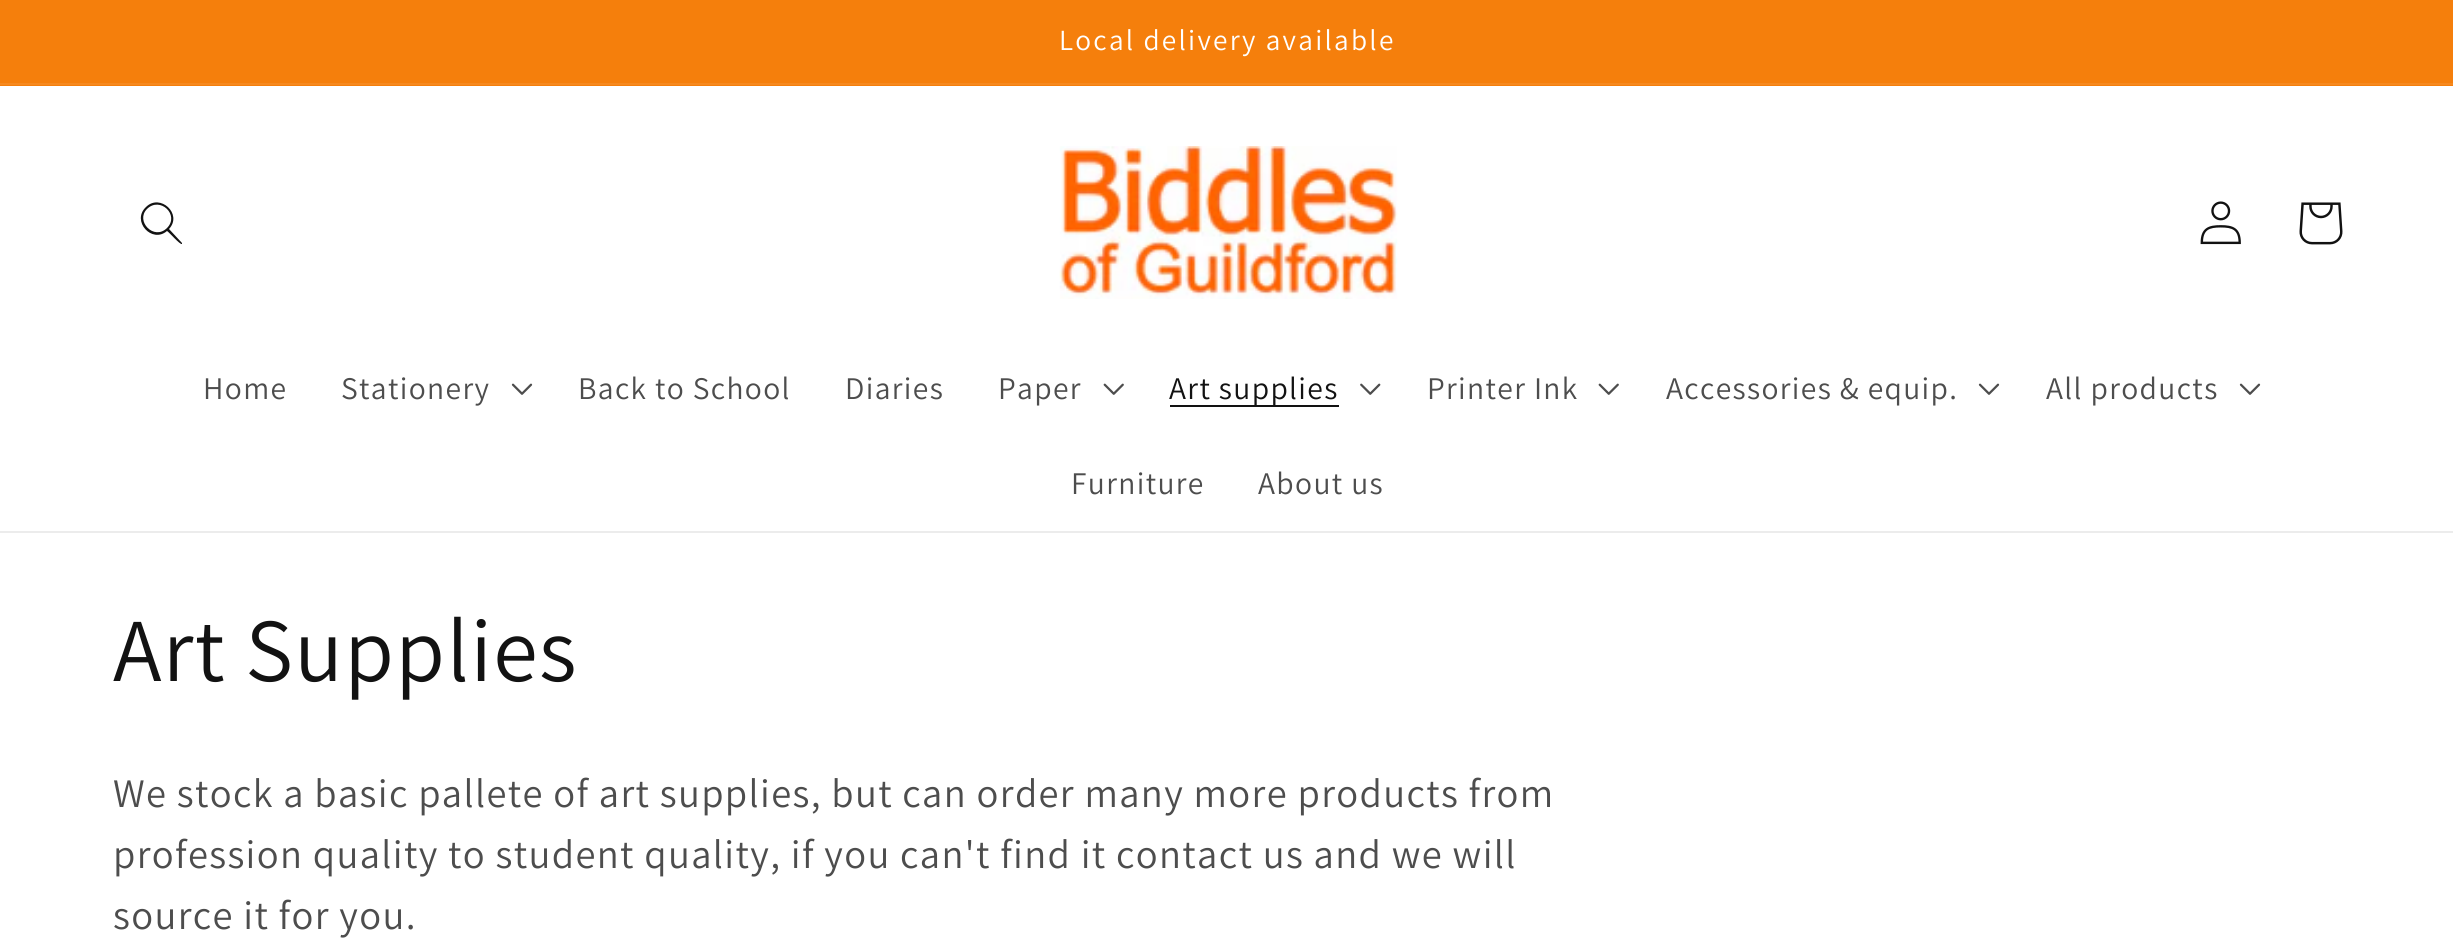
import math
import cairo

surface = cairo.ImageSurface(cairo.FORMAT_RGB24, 2453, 946)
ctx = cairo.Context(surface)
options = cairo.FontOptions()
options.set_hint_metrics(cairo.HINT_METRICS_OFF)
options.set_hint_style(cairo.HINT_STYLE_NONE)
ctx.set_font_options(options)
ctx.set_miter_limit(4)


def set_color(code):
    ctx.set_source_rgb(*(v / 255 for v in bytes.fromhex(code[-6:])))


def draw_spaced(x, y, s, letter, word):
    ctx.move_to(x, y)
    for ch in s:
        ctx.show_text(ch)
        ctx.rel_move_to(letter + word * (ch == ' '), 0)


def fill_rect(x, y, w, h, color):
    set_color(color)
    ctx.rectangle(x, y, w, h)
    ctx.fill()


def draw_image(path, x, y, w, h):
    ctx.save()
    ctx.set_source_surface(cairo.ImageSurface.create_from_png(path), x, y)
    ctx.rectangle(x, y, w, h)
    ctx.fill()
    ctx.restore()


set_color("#ffffff")
ctx.paint()
fill_rect(0, 0, 2453, 86, "#f57f0c")
fill_rect(0, 83, 2453, 2, "#f6891f")
ctx.select_font_face("Assistant")
ctx.set_font_size(29.25)
set_color("#ffffff")
draw_spaced(1059, 50, "Local delivery available", 2.25, 0)
fill_rect(0, 531, 2453, 2, "#ececec")
set_color("#121212")
ctx.set_fill_rule(cairo.FILL_RULE_EVEN_ODD)
ctx.new_path()
ctx.move_to(167, 228)
ctx.curve_to(154, 241, 135, 221, 147, 209)
ctx.curve_to(160, 196, 180, 215, 167, 228)
ctx.close_path()
ctx.move_to(167, 231)
ctx.curve_to(152, 244, 131, 221, 146, 207)
ctx.curve_to(160, 193, 183, 214, 169, 229)
ctx.line_to(182, 243)
ctx.line_to(182, 244)
ctx.curve_to(180, 245, 169, 232, 167, 231)
ctx.close_path()
ctx.fill()
draw_image("assets/img1.png", 1059, 146, 339, 153)
draw_image("assets/img2.png", 2200, 201, 41, 44)
draw_image("assets/img3.png", 2299, 202, 44, 43)
ctx.set_font_size(31.5)
set_color("#4d4d4d")
draw_spaced(203, 399, "Home", 1.35, 0)
draw_spaced(341, 399, "Stationery", 1.35, 0)
draw_image("assets/img4.png", 511, 383, 22, 12)
draw_spaced(578, 399, "Back to School", 1.35, 0)
draw_spaced(845, 399, "Diaries", 1.35, 0)
draw_spaced(998, 399, "Paper", 1.35, 0)
draw_image("assets/img5.png", 1103, 383, 21, 12)
fill_rect(1170, 405, 169, 2, "#121212")
draw_spaced(1169, 399, "Art supplies", 1.35, 0)
draw_image("assets/img6.png", 1360, 383, 21, 12)
set_color("#4d4d4d")
draw_spaced(1427, 399, "Printer Ink", 1.35, 0)
draw_image("assets/img5.png", 1598, 383, 21, 12)
draw_spaced(1666, 399, "Accessories & equip.", 1.35, 0)
draw_image("assets/img4.png", 1978, 383, 22, 12)
draw_spaced(2046, 399, "All products", 1.35, 0)
draw_image("assets/img4.png", 2239, 383, 22, 12)
draw_spaced(1071, 494, "Furniture", 1.35, 0)
draw_spaced(1258, 494, "About us", 1.35, 0)
ctx.set_font_size(90)
set_color("#121212")
draw_spaced(113, 681, "Art Supplies", 1.35, 0)
ctx.set_font_size(40.5)
set_color("#4d4d4d")
draw_spaced(113, 807, "We stock a basic pallete of art supplies, but can order many more products from", 1.35, 0)
draw_spaced(113, 868, "profession quality to student quality, if you can't find it contact us and we will", 1.35, 0)
draw_spaced(113, 929, "source it for you.", 1.35, 0)
surface.write_to_png("output.png")
